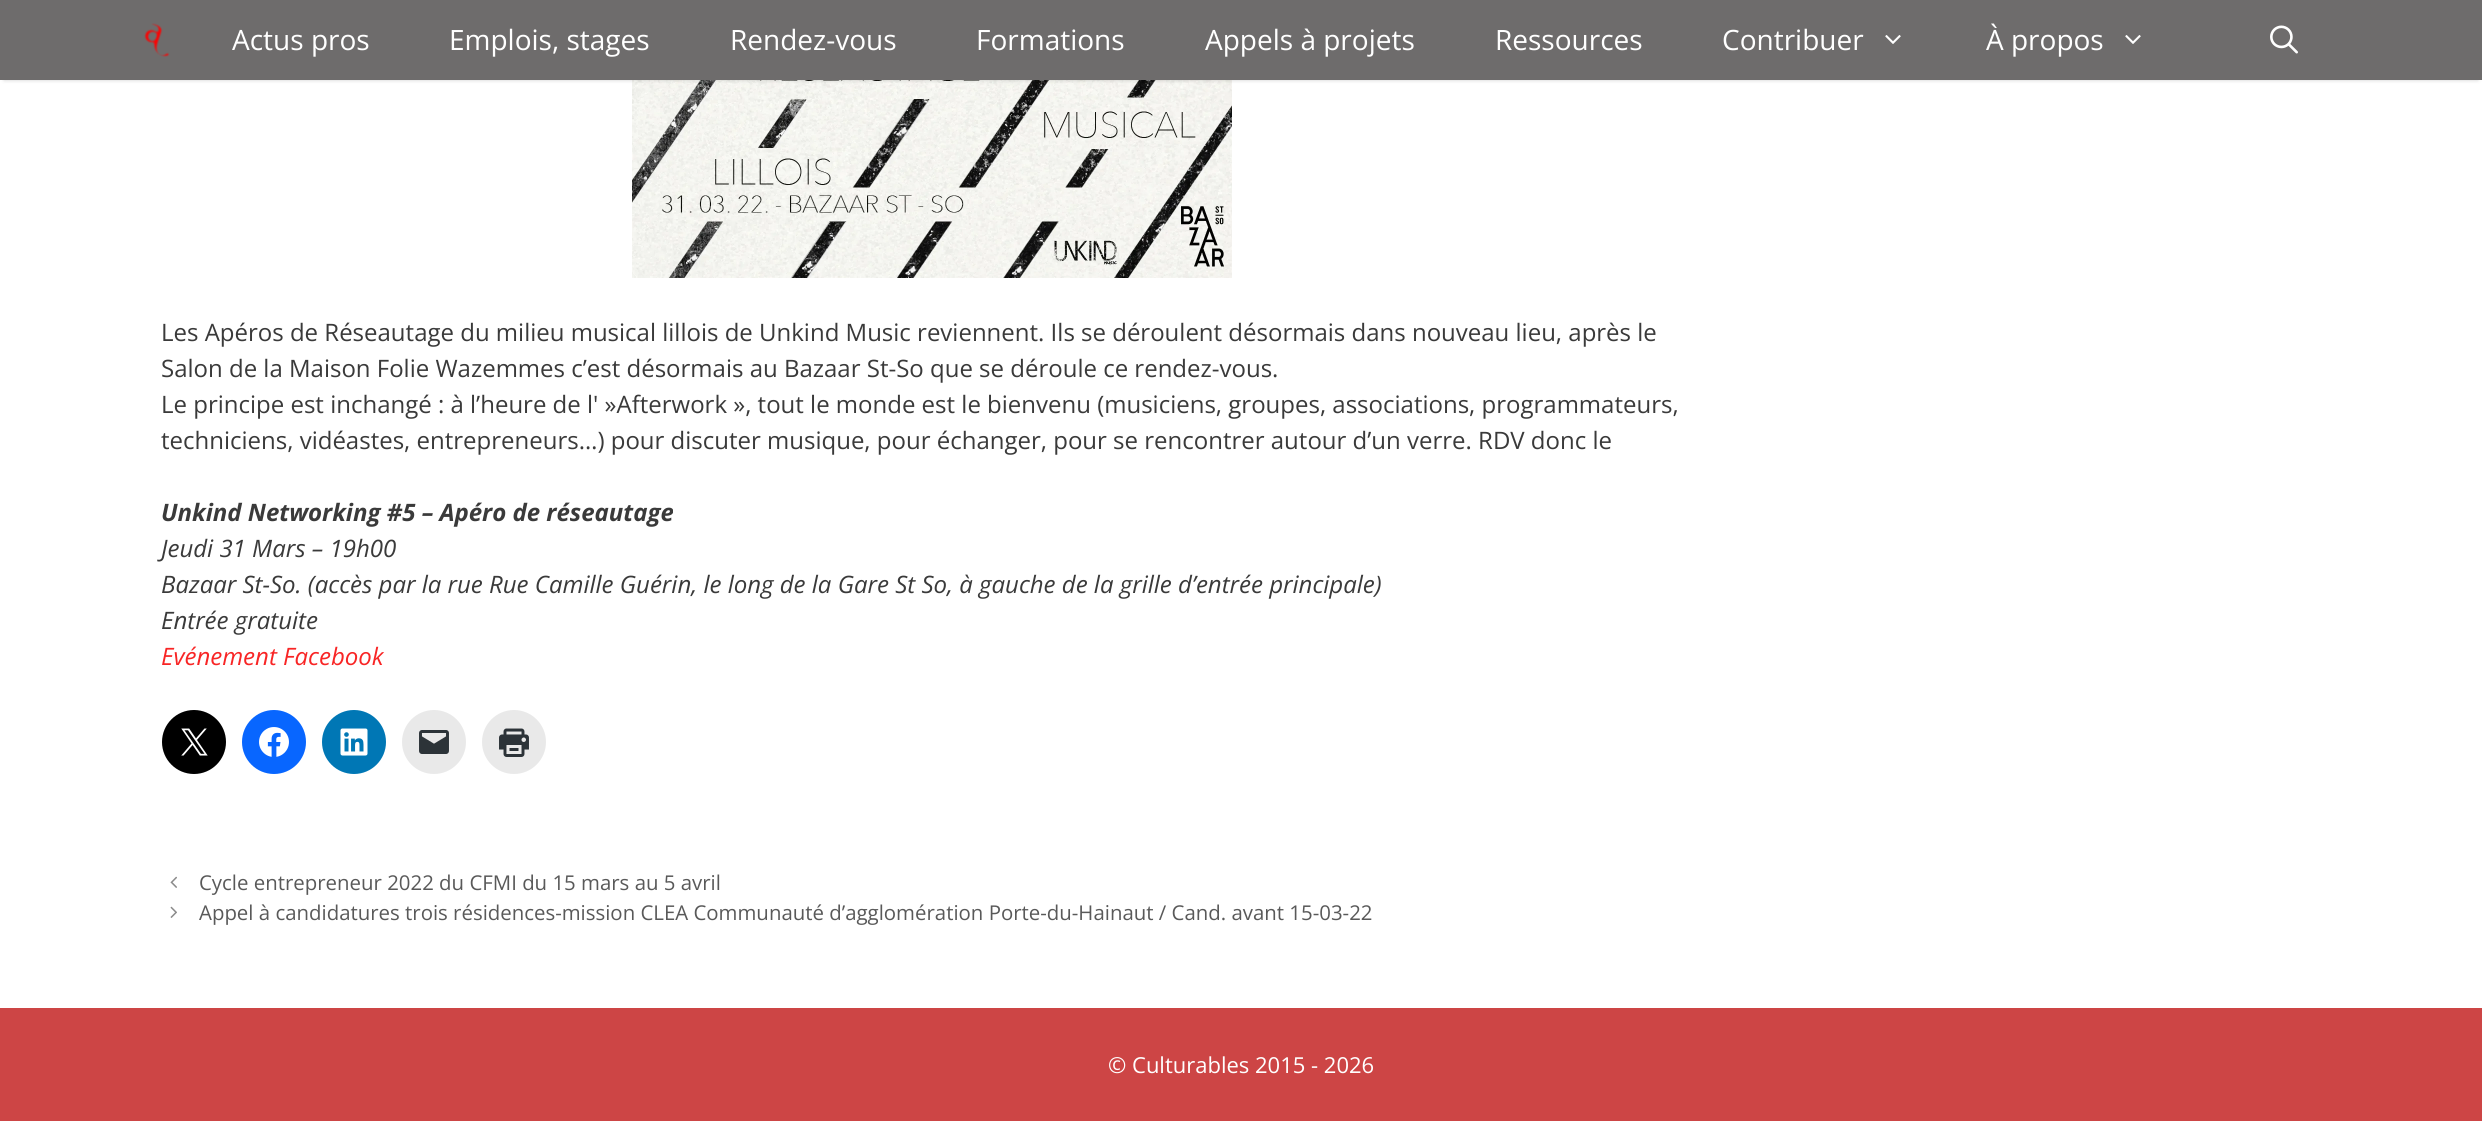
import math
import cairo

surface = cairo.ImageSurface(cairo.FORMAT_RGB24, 2482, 1121)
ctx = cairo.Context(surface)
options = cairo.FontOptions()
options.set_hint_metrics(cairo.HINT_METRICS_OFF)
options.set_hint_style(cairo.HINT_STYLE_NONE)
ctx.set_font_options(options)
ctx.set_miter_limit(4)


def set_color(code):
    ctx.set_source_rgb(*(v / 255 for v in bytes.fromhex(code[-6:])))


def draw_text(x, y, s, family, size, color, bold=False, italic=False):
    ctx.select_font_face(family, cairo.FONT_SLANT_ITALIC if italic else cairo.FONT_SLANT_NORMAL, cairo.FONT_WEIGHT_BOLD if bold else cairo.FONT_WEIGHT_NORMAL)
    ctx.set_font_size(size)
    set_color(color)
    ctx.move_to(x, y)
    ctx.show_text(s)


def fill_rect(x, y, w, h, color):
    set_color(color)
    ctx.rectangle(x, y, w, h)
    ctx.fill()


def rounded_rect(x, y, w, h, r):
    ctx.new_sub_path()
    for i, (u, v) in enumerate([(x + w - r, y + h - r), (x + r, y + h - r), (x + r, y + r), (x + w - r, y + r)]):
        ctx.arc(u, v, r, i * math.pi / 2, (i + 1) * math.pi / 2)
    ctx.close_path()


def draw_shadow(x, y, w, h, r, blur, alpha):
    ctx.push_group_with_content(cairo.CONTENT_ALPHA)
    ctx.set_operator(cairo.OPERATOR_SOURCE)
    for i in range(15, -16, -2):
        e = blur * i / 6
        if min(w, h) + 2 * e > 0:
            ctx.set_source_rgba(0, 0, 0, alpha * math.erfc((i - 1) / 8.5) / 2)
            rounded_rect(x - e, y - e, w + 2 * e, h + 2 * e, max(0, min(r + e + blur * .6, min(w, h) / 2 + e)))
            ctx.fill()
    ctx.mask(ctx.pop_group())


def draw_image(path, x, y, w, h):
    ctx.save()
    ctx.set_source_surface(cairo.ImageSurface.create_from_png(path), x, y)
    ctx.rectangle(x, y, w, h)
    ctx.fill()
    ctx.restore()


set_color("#ffffff")
ctx.paint()
draw_image("assets/img4.png", 632, 80, 600, 198)
set_color("#000000")
draw_shadow(4, 8, 2474, 72, 0, 2, 0.2)
fill_rect(0, 0, 2482, 80, "#6e6c6c")
draw_image("assets/img1.png", 144, 23, 26, 34)
draw_text(232, 50, "Actus pros", "Open Sans", 28, "#ffffff")
draw_text(449, 50, "Emplois, stages", "Open Sans", 28, "#ffffff")
draw_text(730, 50, "Rendez-vous", "Open Sans", 28, "#ffffff")
draw_text(976, 50, "Formations", "Open Sans", 28, "#ffffff")
draw_text(1205, 50, "Appels à projets", "Open Sans", 28, "#ffffff")
draw_text(1495, 50, "Ressources", "Open Sans", 28, "#ffffff")
draw_text(1722, 50, "Contribuer", "Open Sans", 28, "#ffffff")
draw_image("assets/img2.png", 1885, 35, 16, 9)
draw_text(1986, 50, "À propos", "Open Sans", 28, "#ffffff")
draw_image("assets/img2.png", 2125, 35, 16, 9)
draw_image("assets/img3.png", 2270, 25, 28, 29)
draw_text(161, 341, "Les Apéros de Réseautage du milieu musical lillois de Unkind Music reviennent. Ils se déroulent désormais dans nouveau lieu, après le", "Open Sans", 24, "#3a3a3a")
draw_text(161, 377, "Salon de la Maison Folie Wazemmes c’est désormais au Bazaar St-So que se déroule ce rendez-vous.", "Open Sans", 24, "#3a3a3a")
draw_text(161, 413, "Le principe est inchangé : à l’heure de l' »Afterwork », tout le monde est le bienvenu (musiciens, groupes, associations, programmateurs,", "Open Sans", 24, "#3a3a3a")
draw_text(161, 449, "techniciens, vidéastes, entrepreneurs…) pour discuter musique, pour échanger, pour se rencontrer autour d’un verre. RDV donc le", "Open Sans", 24, "#3a3a3a")
draw_text(161, 521, "Unkind Networking #5 – Apéro de réseautage", "Open Sans", 24, "#3a3a3a", bold=True, italic=True)
draw_text(161, 557, "Jeudi 31 Mars – 19h00", "Open Sans", 24, "#3a3a3a", italic=True)
draw_text(161, 593, "Bazaar St-So. (accès par la rue Rue Camille Guérin, le long de la Gare St So, à gauche de la grille d’entrée principale)", "Open Sans", 24, "#3a3a3a", italic=True)
draw_text(161, 629, "Entrée gratuite", "Open Sans", 24, "#3a3a3a", italic=True)
draw_text(161, 665, "Evénement Facebook", "Open Sans", 24, "#f82525", italic=True)
set_color("#000000")
ctx.new_path()
ctx.arc(194, 742, 32, 0, 2 * math.pi)
ctx.fill()
draw_image("assets/img5.png", 181, 728, 27, 28)
set_color("#0866ff")
ctx.arc(274, 742, 32, 0, 2 * math.pi)
ctx.fill()
draw_image("assets/img6.png", 259, 727, 30, 30)
set_color("#0077b5")
ctx.arc(354, 742, 32, 0, 2 * math.pi)
ctx.fill()
draw_image("assets/img7.png", 340, 728, 28, 28)
set_color("#e9e9e9")
ctx.arc(434, 742, 32, 0, 2 * math.pi)
ctx.fill()
draw_image("assets/img8.png", 419, 730, 30, 24)
ctx.arc(514, 742, 32, 0, 2 * math.pi)
ctx.fill()
draw_image("assets/img9.png", 499, 728, 30, 29)
draw_image("assets/img10.png", 170, 876, 7, 12)
draw_text(199, 890, "Cycle entrepreneur 2022 du CFMI du 15 mars au 5 avril", "Open Sans", 20.4, "#595959")
draw_image("assets/img11.png", 170, 906, 7, 12)
draw_text(199, 920, "Appel à candidatures trois résidences-mission CLEA Communauté d’agglomération Porte-du-Hainaut / Cand. avant 15-03-22", "Open Sans", 20.4, "#595959")
fill_rect(0, 1008, 2482, 113, "#cd4545")
draw_text(1108, 1073, "© Culturables 2015 - 2026", "Open Sans", 22, "#ffffff")
surface.write_to_png("output.png")
